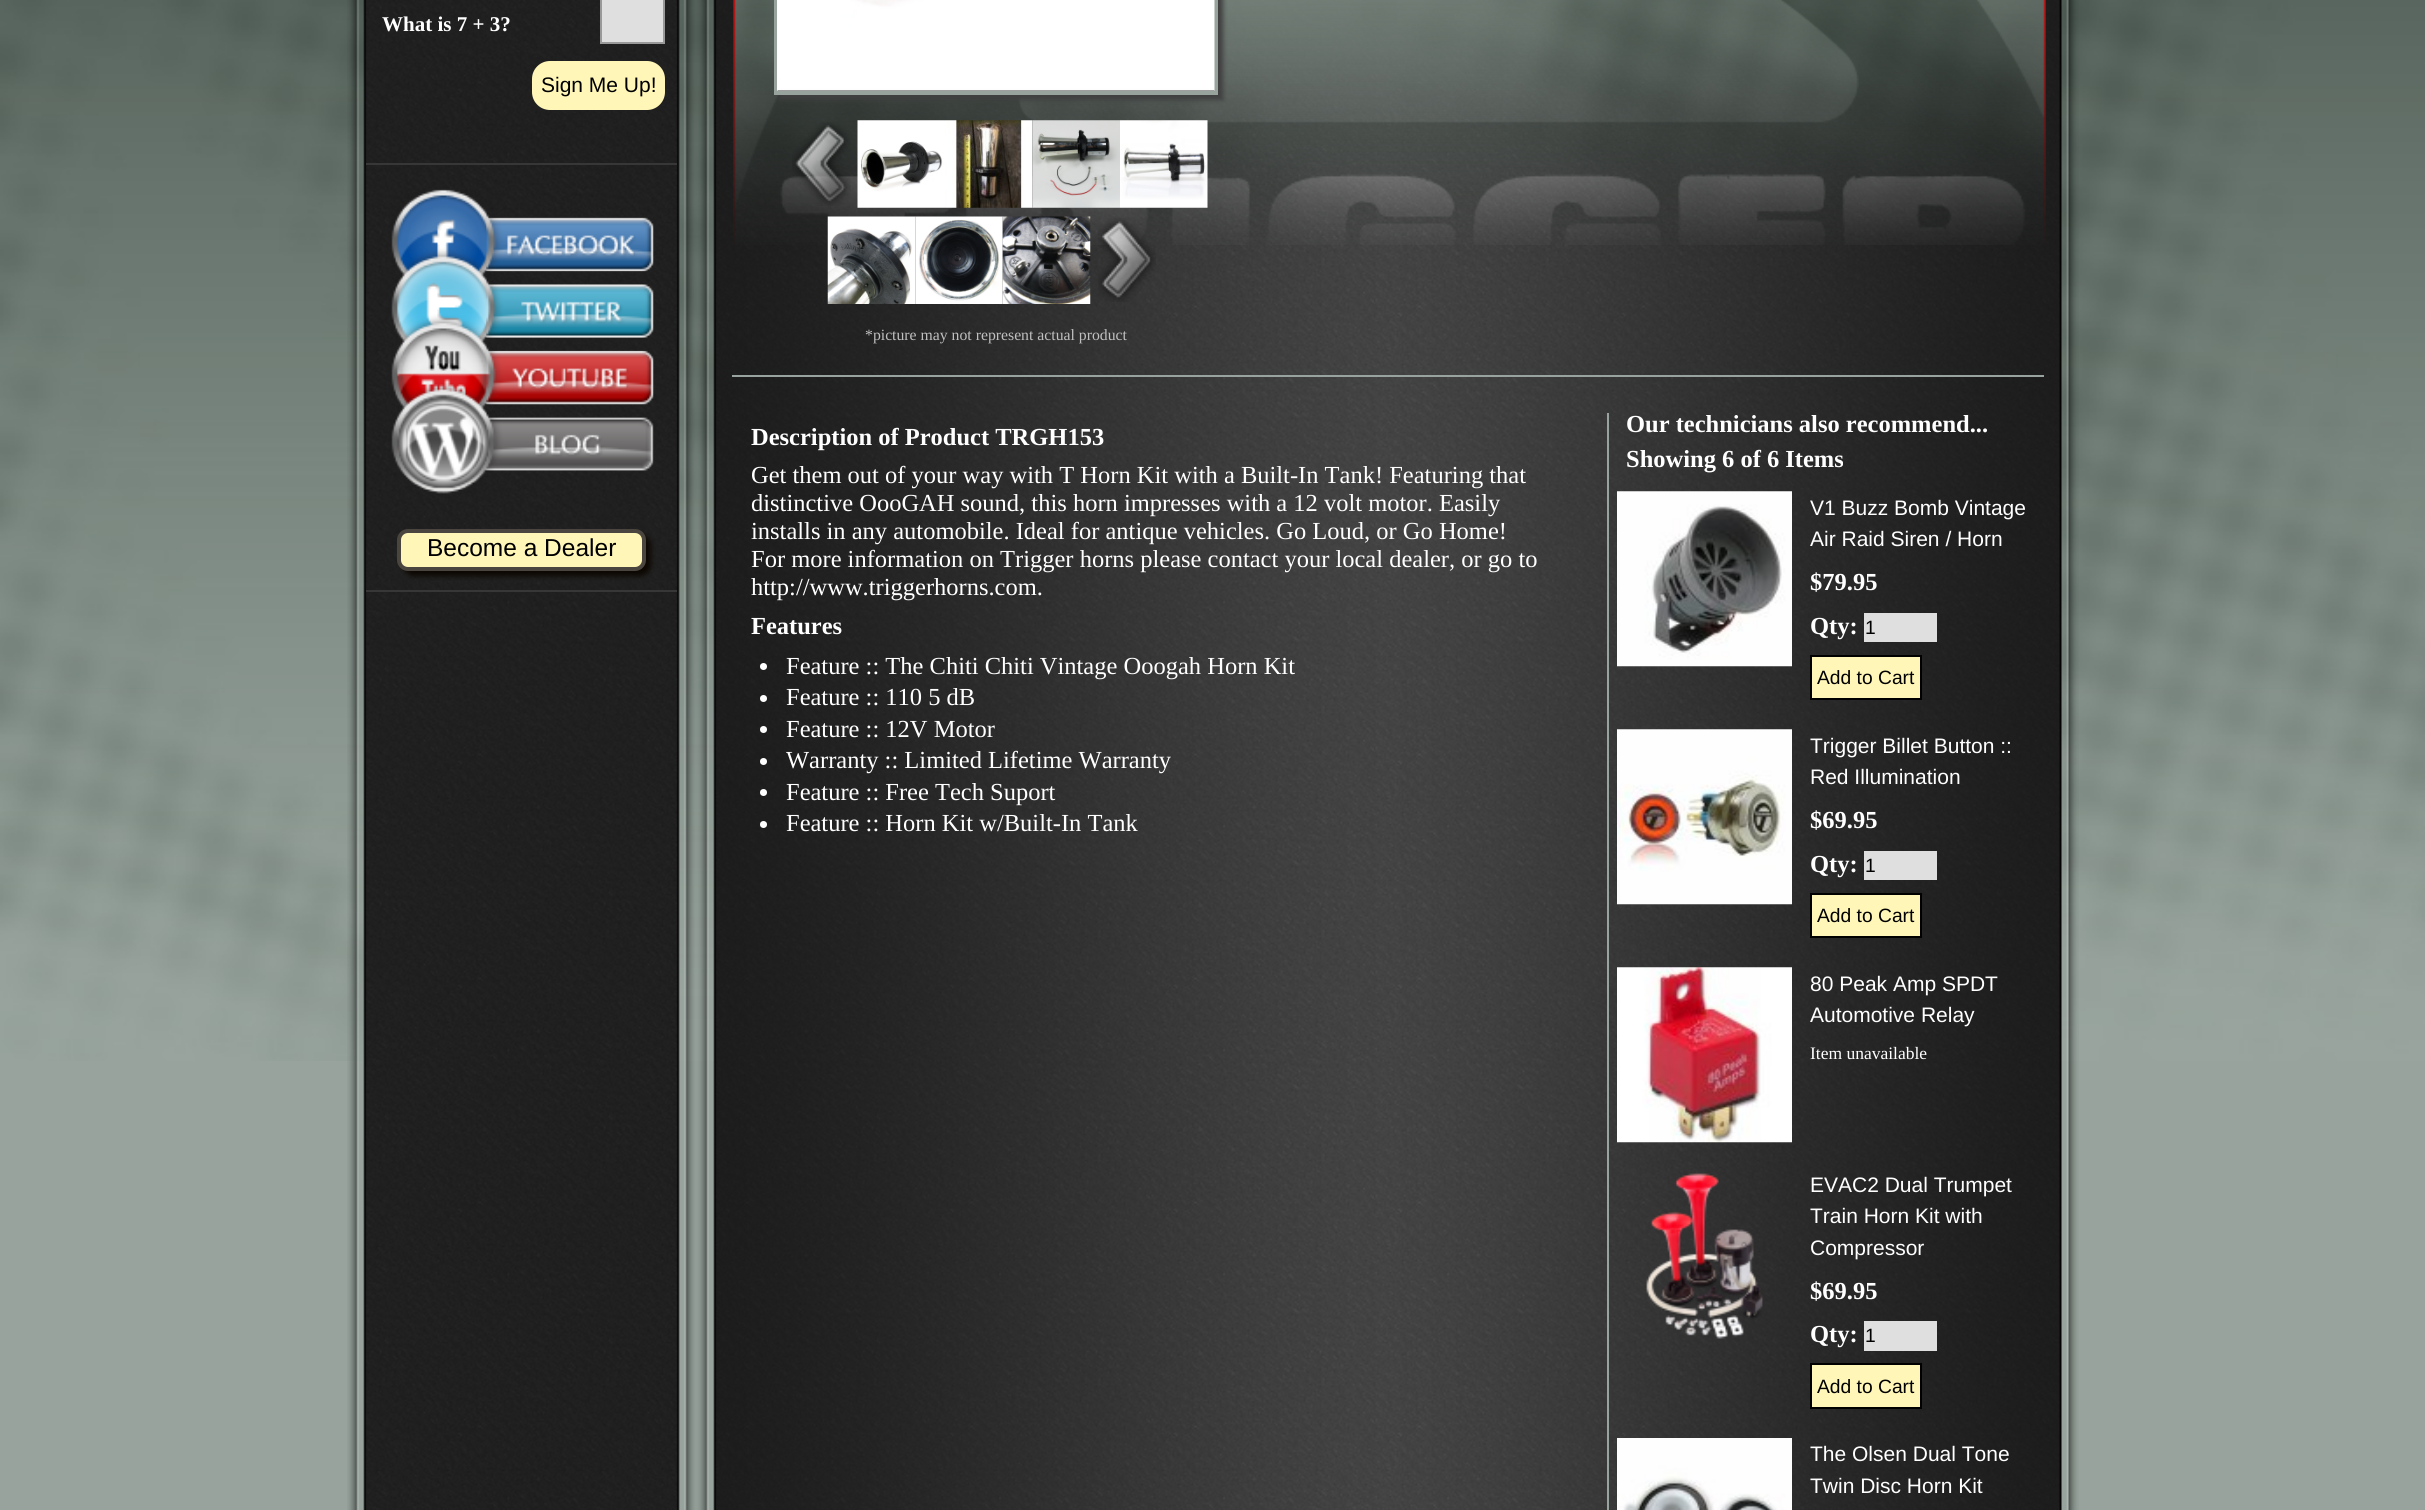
import math
import cairo

surface = cairo.ImageSurface(cairo.FORMAT_RGB24, 2425, 1510)
ctx = cairo.Context(surface)
options = cairo.FontOptions()
options.set_hint_metrics(cairo.HINT_METRICS_OFF)
options.set_hint_style(cairo.HINT_STYLE_NONE)
ctx.set_font_options(options)
ctx.set_miter_limit(4)


def set_color(code):
    ctx.set_source_rgb(*(v / 255 for v in bytes.fromhex(code[-6:])))


def draw_text(x, y, s, family, size, color, bold=False, italic=False):
    ctx.select_font_face(family, cairo.FONT_SLANT_ITALIC if italic else cairo.FONT_SLANT_NORMAL, cairo.FONT_WEIGHT_BOLD if bold else cairo.FONT_WEIGHT_NORMAL)
    ctx.set_font_size(size)
    set_color(color)
    ctx.move_to(x, y)
    ctx.show_text(s)


def fill_rect(x, y, w, h, color):
    set_color(color)
    ctx.rectangle(x, y, w, h)
    ctx.fill()


def rounded_rect(x, y, w, h, r):
    ctx.new_sub_path()
    for i, (u, v) in enumerate([(x + w - r, y + h - r), (x + r, y + h - r), (x + r, y + r), (x + w - r, y + r)]):
        ctx.arc(u, v, r, i * math.pi / 2, (i + 1) * math.pi / 2)
    ctx.close_path()


def draw_shadow(x, y, w, h, r, blur, alpha):
    ctx.push_group_with_content(cairo.CONTENT_ALPHA)
    ctx.set_operator(cairo.OPERATOR_SOURCE)
    for i in range(15, -16, -2):
        e = blur * i / 6
        if min(w, h) + 2 * e > 0:
            ctx.set_source_rgba(0, 0, 0, alpha * math.erfc((i - 1) / 8.5) / 2)
            rounded_rect(x - e, y - e, w + 2 * e, h + 2 * e, max(0, min(r + e + blur * .6, min(w, h) / 2 + e)))
            ctx.fill()
    ctx.mask(ctx.pop_group())


def draw_image(path, x, y, w, h):
    ctx.save()
    ctx.set_source_surface(cairo.ImageSurface.create_from_png(path), x, y)
    ctx.rectangle(x, y, w, h)
    ctx.fill()
    ctx.restore()


set_color("#97a39c")
ctx.paint()
draw_image("assets/img1.png", 0, 0, 2425, 1061)
draw_image("assets/img2.png", 347, 0, 1732, 1510)
draw_text(382, 31, "What is 7 + 3?", "Liberation Serif", 21, "#ffffff", bold=True)
set_color("#dfdfdf")
ctx.rectangle(601, -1, 63, 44)
ctx.fill_preserve()
set_color("#999999")
ctx.stroke()
set_color("#fff6b8")
rounded_rect(532, 61, 133, 49, 18)
ctx.fill()
draw_text(541, 92, "Sign Me Up!", "Liberation Sans", 21, "#000000")
fill_rect(366, 163, 311, 2, "#373737")
draw_image("assets/img3.png", 391, 189, 263, 305)
draw_image("assets/img4.png", 486, 217, 168, 54)
draw_image("assets/img5.png", 486, 284, 168, 54)
draw_image("assets/img6.png", 486, 351, 168, 54)
set_color("#0c0701")
draw_shadow(403, 534, 248, 42, 11, 2.5, 1)
set_color("#fff6b8")
rounded_rect(399, 531, 245, 38, 9)
ctx.fill_preserve()
set_color("#4a463f")
ctx.set_line_width(4)
ctx.stroke()
draw_text(427, 556, "Become a Dealer", "Liberation Sans", 24.5, "#000000")
fill_rect(366, 590, 311, 2, "#373737")
draw_image("assets/img7.png", 733, 0, 1313, 245)
set_color("#3f3f3f")
draw_shadow(779, -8, 444, 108, 0, 2.5, 1)
ctx.rectangle(776, -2, 440, 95)
set_color("#98a39d")
ctx.stroke()
draw_image("assets/img8.png", 777, 0, 438, 91)
draw_image("assets/img9.png", 792, 122, 59, 84)
draw_image("assets/img10.png", 857, 120, 88, 88)
draw_image("assets/img11.png", 945, 120, 88, 88)
draw_image("assets/img12.png", 1032, 120, 88, 88)
draw_image("assets/img13.png", 1120, 120, 88, 88)
draw_image("assets/img14.png", 827, 216, 89, 88)
draw_image("assets/img15.png", 915, 216, 88, 88)
draw_image("assets/img16.png", 1002, 216, 89, 88)
draw_image("assets/img17.png", 1098, 218, 58, 84)
draw_text(865, 340, "*picture may not represent actual product", "Liberation Serif", 15.75, "#c0c0c0")
fill_rect(732, 375, 1312, 2, "#98a39d")
draw_text(751, 445, "Description of Product TRGH153", "Liberation Serif", 24.5, "#ffffff", bold=True)
draw_text(751, 483, "Get them out of your way with T Horn Kit with a Built-In Tank! Featuring that", "Liberation Serif", 24.5, "#ffffff")
draw_text(751, 511, "distinctive OooGAH sound, this horn impresses with a 12 volt motor. Easily", "Liberation Serif", 24.5, "#ffffff")
draw_text(751, 539, "installs in any automobile. Ideal for antique vehicles. Go Loud, or Go Home!", "Liberation Serif", 24.5, "#ffffff")
draw_text(751, 567, "For more information on Trigger horns please contact your local dealer, or go to", "Liberation Serif", 24.5, "#ffffff")
draw_text(751, 595, "http://www.triggerhorns.com.", "Liberation Serif", 24.5, "#ffffff")
draw_text(751, 634, "Features", "Liberation Serif", 24.5, "#ffffff", bold=True)
ctx.new_path()
ctx.arc(763.5, 666.5, 3.5, 0, 2 * math.pi)
ctx.fill()
draw_text(786, 674, "Feature :: The Chiti Chiti Vintage Ooogah Horn Kit", "Liberation Serif", 24.5, "#ffffff")
ctx.new_path()
ctx.arc(763.5, 698.5, 3.5, 0, 2 * math.pi)
ctx.fill()
draw_text(786, 705, "Feature :: 110 5 dB", "Liberation Serif", 24.5, "#ffffff")
ctx.new_path()
ctx.arc(763.5, 729.5, 3.5, 0, 2 * math.pi)
ctx.fill()
draw_text(786, 737, "Feature :: 12V Motor", "Liberation Serif", 24.5, "#ffffff")
ctx.new_path()
ctx.arc(763.5, 761.5, 3.5, 0, 2 * math.pi)
ctx.fill()
draw_text(786, 768, "Warranty :: Limited Lifetime Warranty", "Liberation Serif", 24.5, "#ffffff")
ctx.new_path()
ctx.arc(763.5, 792.5, 3.5, 0, 2 * math.pi)
ctx.fill()
draw_text(786, 800, "Feature :: Free Tech Suport", "Liberation Serif", 24.5, "#ffffff")
ctx.new_path()
ctx.arc(763.5, 824.5, 3.5, 0, 2 * math.pi)
ctx.fill()
draw_text(786, 831, "Feature :: Horn Kit w/Built-In Tank", "Liberation Serif", 24.5, "#ffffff")
fill_rect(1607, 413, 2, 1097, "#98a39d")
draw_text(1626, 432, "Our technicians also recommend...", "Liberation Serif", 24.5, "#ffffff", bold=True)
draw_text(1626, 467, "Showing 6 of 6 Items", "Liberation Serif", 24.5, "#ffffff", bold=True)
draw_image("assets/img18.png", 1617, 491, 175, 176)
draw_text(1810, 515, "V1 Buzz Bomb Vintage", "Liberation Sans", 21, "#ffffff")
draw_text(1810, 546, "Air Raid Siren / Horn", "Liberation Sans", 21, "#ffffff")
draw_text(1810, 590, "$79.95", "Liberation Serif", 24.5, "#ffffff", bold=True)
draw_text(1810, 634, "Qty:", "Liberation Serif", 24.5, "#ffffff", bold=True)
fill_rect(1864, 613, 73, 29, "#dfdfdf")
draw_text(1865, 634, "1", "Liberation Sans", 19.25, "#000000")
set_color("#fff6b8")
ctx.rectangle(1811, 656, 110, 43)
ctx.fill_preserve()
set_color("#000000")
ctx.set_line_width(2)
ctx.stroke()
draw_text(1817, 684, "Add to Cart", "Liberation Sans", 19.25, "#000000")
draw_image("assets/img19.png", 1617, 729, 175, 176)
draw_text(1810, 753, "Trigger Billet Button ::", "Liberation Sans", 21, "#ffffff")
draw_text(1810, 784, "Red Illumination", "Liberation Sans", 21, "#ffffff")
draw_text(1810, 828, "$69.95", "Liberation Serif", 24.5, "#ffffff", bold=True)
draw_text(1810, 872, "Qty:", "Liberation Serif", 24.5, "#ffffff", bold=True)
fill_rect(1864, 851, 73, 29, "#dfdfdf")
draw_text(1865, 872, "1", "Liberation Sans", 19.25, "#000000")
set_color("#fff6b8")
ctx.rectangle(1811, 894, 110, 43)
ctx.fill_preserve()
set_color("#000000")
ctx.stroke()
draw_text(1817, 922, "Add to Cart", "Liberation Sans", 19.25, "#000000")
draw_image("assets/img20.png", 1617, 967, 175, 176)
draw_text(1810, 991, "80 Peak Amp SPDT", "Liberation Sans", 21, "#ffffff")
draw_text(1810, 1022, "Automotive Relay", "Liberation Sans", 21, "#ffffff")
draw_text(1810, 1059, "Item unavailable", "Liberation Serif", 17.5, "#ffffff")
draw_image("assets/img21.png", 1646, 1173, 117, 166)
draw_text(1810, 1192, "EVAC2 Dual Trumpet", "Liberation Sans", 21, "#ffffff")
draw_text(1810, 1223, "Train Horn Kit with", "Liberation Sans", 21, "#ffffff")
draw_text(1810, 1255, "Compressor", "Liberation Sans", 21, "#ffffff")
draw_text(1810, 1299, "$69.95", "Liberation Serif", 24.5, "#ffffff", bold=True)
draw_text(1810, 1342, "Qty:", "Liberation Serif", 24.5, "#ffffff", bold=True)
fill_rect(1864, 1321, 73, 30, "#dfdfdf")
draw_text(1865, 1342, "1", "Liberation Sans", 19.25, "#000000")
set_color("#fff6b8")
ctx.rectangle(1811, 1364, 110, 44)
ctx.fill_preserve()
set_color("#000000")
ctx.stroke()
draw_text(1817, 1393, "Add to Cart", "Liberation Sans", 19.25, "#000000")
draw_image("assets/img22.png", 1617, 1438, 175, 72)
draw_text(1810, 1461, "The Olsen Dual Tone", "Liberation Sans", 21, "#ffffff")
draw_text(1810, 1493, "Twin Disc Horn Kit", "Liberation Sans", 21, "#ffffff")
surface.write_to_png("output.png")
